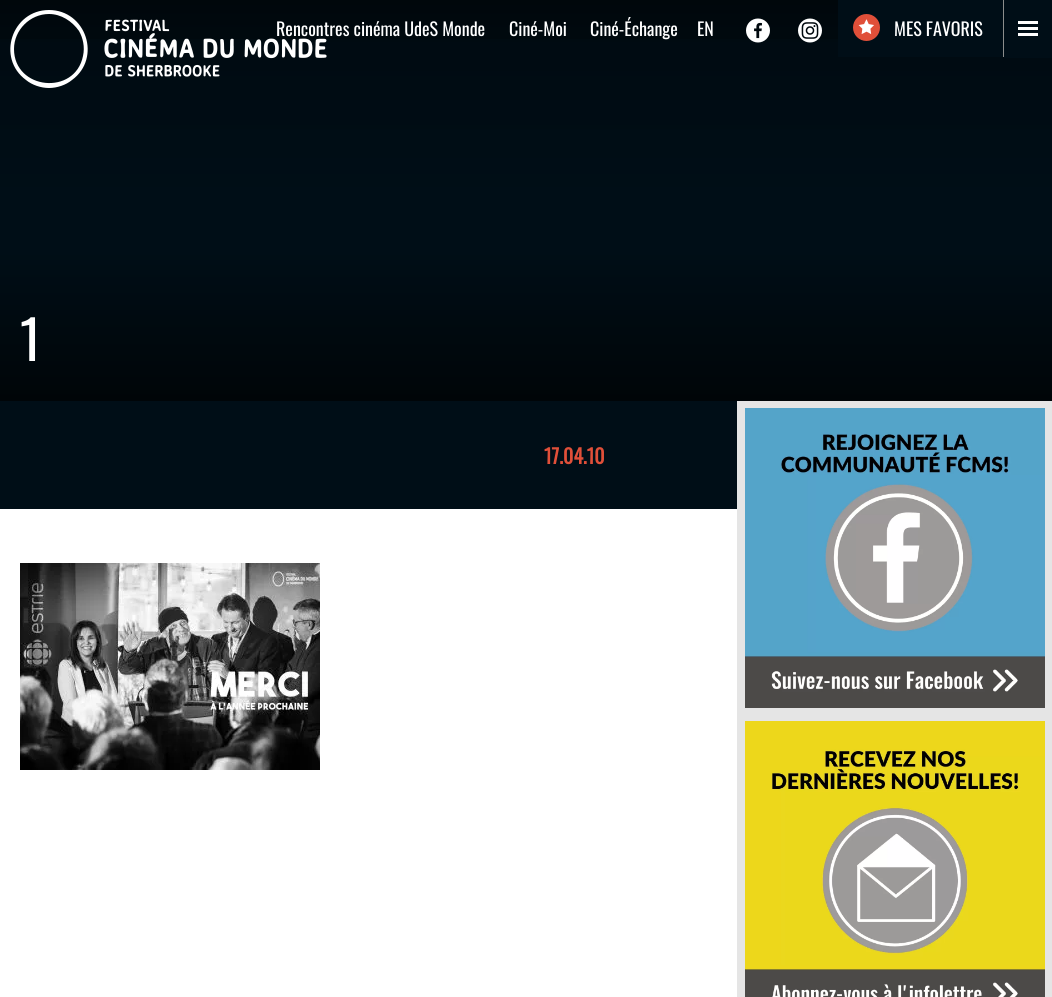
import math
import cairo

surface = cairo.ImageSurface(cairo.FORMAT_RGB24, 1052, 997)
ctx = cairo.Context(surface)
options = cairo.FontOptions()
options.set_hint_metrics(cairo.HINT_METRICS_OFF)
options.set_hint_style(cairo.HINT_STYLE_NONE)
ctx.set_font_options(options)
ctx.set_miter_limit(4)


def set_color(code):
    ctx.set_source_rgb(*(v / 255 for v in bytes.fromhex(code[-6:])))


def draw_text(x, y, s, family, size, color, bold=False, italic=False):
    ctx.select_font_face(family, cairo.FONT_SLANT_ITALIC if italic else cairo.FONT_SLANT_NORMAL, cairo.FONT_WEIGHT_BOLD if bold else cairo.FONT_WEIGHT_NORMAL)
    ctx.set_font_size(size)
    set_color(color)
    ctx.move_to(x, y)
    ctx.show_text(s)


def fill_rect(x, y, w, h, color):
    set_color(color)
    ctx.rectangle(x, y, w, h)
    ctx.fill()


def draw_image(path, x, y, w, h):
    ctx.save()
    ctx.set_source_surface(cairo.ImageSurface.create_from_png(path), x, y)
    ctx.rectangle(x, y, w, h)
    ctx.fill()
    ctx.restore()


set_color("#ffffff")
ctx.paint()
gradient = cairo.LinearGradient(526, 0, 526, 200)
gradient.add_color_stop_rgba(0, 0, 0.039, 0.063, 1)
gradient.add_color_stop_rgba(1, 0, 0.055, 0.09, 1)
ctx.set_source(gradient)
ctx.rectangle(0, 0, 1052, 200)
ctx.fill()
gradient = cairo.LinearGradient(526, 0, 526, 80)
gradient.add_color_stop_rgba(0, 0, 0, 0, 0.3)
gradient.add_color_stop_rgba(1, 0, 0, 0, 0)
ctx.set_source(gradient)
ctx.rectangle(0, 0, 1052, 39)
ctx.fill()
set_color("#ffffff")
ctx.new_path()
ctx.move_to(49, 14)
ctx.curve_to(30, 14, 14, 30, 14, 49)
ctx.curve_to(14, 90, 75, 96, 83, 56)
ctx.curve_to(85, 47, 83, 38, 79, 31)
ctx.curve_to(72, 21, 61, 14, 49, 14)
ctx.close_path()
ctx.move_to(49, 88)
ctx.curve_to(41, 88, 32, 85, 26, 80)
ctx.curve_to(-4, 58, 12, 10, 49, 10)
ctx.curve_to(86, 10, 102, 58, 72, 80)
ctx.curve_to(66, 85, 57, 88, 49, 88)
ctx.close_path()
ctx.fill()
draw_text(276, 36, "Rencontres cinéma UdeS Monde", "Oswald", 18, "#ffffff")
draw_image("assets/img1.png", 104, 19, 223, 58)
draw_text(509, 36, "Ciné-Moi", "Oswald", 18, "#ffffff")
draw_text(590, 36, "Ciné-Échange", "Oswald", 18, "#ffffff")
draw_text(697, 36, "EN", "Oswald", 18, "#ffffff")
draw_image("assets/img2.png", 746, 18, 24, 25)
draw_image("assets/img3.png", 798, 18, 24, 25)
fill_rect(838, 0, 165, 57, "#000e17")
fill_rect(1003, 0, 1, 57, "#8b8d8c")
draw_image("assets/img4.png", 853, 14, 27, 27)
draw_text(894, 36, "MES FAVORIS", "Oswald", 18, "#ffffff")
fill_rect(1004, 0, 48, 58, "#000e17")
fill_rect(1018, 27, 20, 3, "#ffffff")
fill_rect(1018, 21, 20, 3, "#ffffff")
fill_rect(1018, 33, 20, 3, "#ffffff")
fill_rect(0, 200, 1052, 51, "#000e17")
gradient = cairo.LinearGradient(526, 251, 526, 401)
gradient.add_color_stop_rgba(0, 0, 0.055, 0.09, 1)
gradient.add_color_stop_rgba(1, 0, 0.02, 0.031, 1)
ctx.set_source(gradient)
ctx.rectangle(0, 251, 1052, 150)
ctx.fill()
draw_text(20, 361, "1", "Oswald", 54, "#ffffff")
fill_rect(0, 401, 737, 108, "#000e17")
draw_text(544, 464, "17.04.10", "Oswald", 20, "#e04f39", bold=True)
draw_image("assets/img5.png", 20, 563, 300, 207)
fill_rect(737, 401, 315, 596, "#e5e5e5")
draw_image("assets/img6.png", 745, 408, 300, 300)
draw_image("assets/img7.png", 745, 721, 300, 276)
surface.write_to_png("output.png")
